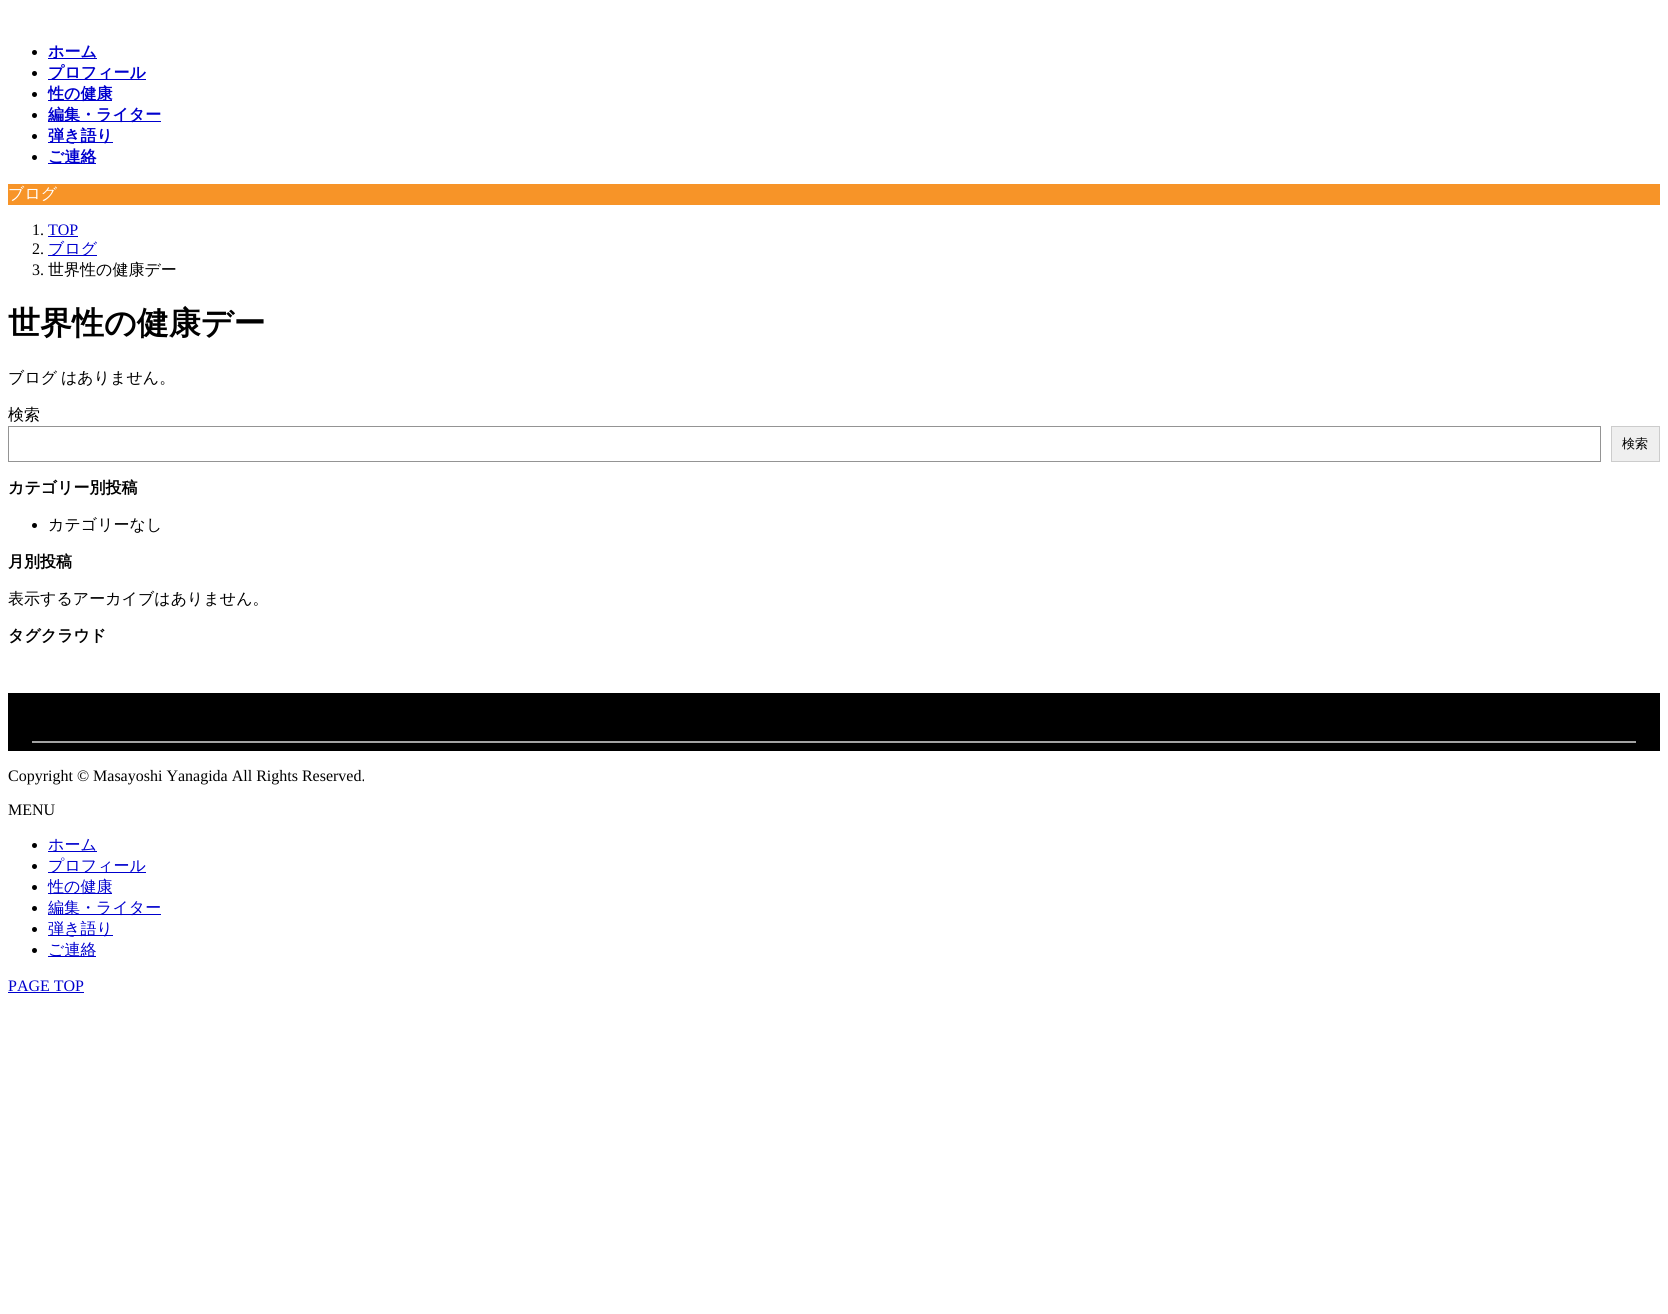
import math
import cairo

surface = cairo.ImageSurface(cairo.FORMAT_RGB24, 1668, 1314)
ctx = cairo.Context(surface)
options = cairo.FontOptions()
options.set_hint_metrics(cairo.HINT_METRICS_OFF)
options.set_hint_style(cairo.HINT_STYLE_NONE)
ctx.set_font_options(options)
ctx.set_miter_limit(4)


def set_color(code):
    ctx.set_source_rgb(*(v / 255 for v in bytes.fromhex(code[-6:])))


def draw_text(x, y, s, family, size, color, bold=False, italic=False):
    ctx.select_font_face(family, cairo.FONT_SLANT_ITALIC if italic else cairo.FONT_SLANT_NORMAL, cairo.FONT_WEIGHT_BOLD if bold else cairo.FONT_WEIGHT_NORMAL)
    ctx.set_font_size(size)
    set_color(color)
    ctx.move_to(x, y)
    ctx.show_text(s)


def draw_spaced(x, y, s, letter, word):
    ctx.move_to(x, y)
    for ch in s:
        ctx.show_text(ch)
        ctx.rel_move_to(letter + word * (ch == ' '), 0)


def fill_rect(x, y, w, h, color):
    set_color(color)
    ctx.rectangle(x, y, w, h)
    ctx.fill()


set_color("#ffffff")
ctx.paint()
set_color("#000000")
ctx.arc(34.5, 52.5, 2.5, 0, 2 * math.pi)
ctx.fill()
fill_rect(48, 58, 49, 1, "#0000cd")
draw_text(48, 57, "ホーム", "WenQuanYi Zen Hei", 16, "#0000cd", bold=True)
set_color("#000000")
ctx.new_path()
ctx.arc(34.5, 73.5, 2.5, 0, 2 * math.pi)
ctx.fill()
fill_rect(48, 79, 98, 1, "#0000cd")
draw_text(48, 78, "プロフィール", "WenQuanYi Zen Hei", 16, "#0000cd", bold=True)
set_color("#000000")
ctx.new_path()
ctx.arc(34.5, 94.5, 2.5, 0, 2 * math.pi)
ctx.fill()
fill_rect(48, 100, 64, 1, "#0000cd")
draw_text(48, 99, "性の健康", "WenQuanYi Zen Hei", 16, "#0000cd", bold=True)
set_color("#000000")
ctx.new_path()
ctx.arc(34.5, 115.5, 2.5, 0, 2 * math.pi)
ctx.fill()
fill_rect(48, 121, 113, 1, "#0000cd")
draw_text(48, 120, "編集・ライター", "WenQuanYi Zen Hei", 16, "#0000cd", bold=True)
set_color("#000000")
ctx.new_path()
ctx.arc(34.5, 136.5, 2.5, 0, 2 * math.pi)
ctx.fill()
fill_rect(48, 142, 65, 1, "#0000cd")
draw_text(48, 141, "弾き語り", "WenQuanYi Zen Hei", 16, "#0000cd", bold=True)
set_color("#000000")
ctx.new_path()
ctx.arc(34.5, 157.5, 2.5, 0, 2 * math.pi)
ctx.fill()
fill_rect(48, 163, 48, 1, "#0000cd")
draw_text(48, 162, "ご連絡", "WenQuanYi Zen Hei", 16, "#0000cd", bold=True)
fill_rect(8, 184, 1652, 21, "#f79428")
draw_text(8, 199, "ブログ", "WenQuanYi Zen Hei Medium", 16, "#ffffff")
draw_text(32, 235, "1.", "Liberation Serif", 16, "#000000")
draw_text(48, 235, "TOP", "Liberation Serif", 16, "#0000cd")
fill_rect(48, 236, 30, 1, "#0000cd")
draw_text(32, 254, "2.", "Liberation Serif", 16, "#000000")
fill_rect(48, 255, 49, 1, "#0000cd")
draw_text(48, 254, "ブログ", "WenQuanYi Zen Hei Medium", 16, "#0000cd")
draw_text(32, 275, "3.", "Liberation Serif", 16, "#000000")
draw_text(48, 275, "世界性の健康デー", "WenQuanYi Zen Hei Medium", 16, "#000000")
draw_text(8, 334, "世界性の健康デー", "WenQuanYi Zen Hei", 32, "#000000", bold=True)
ctx.select_font_face("WenQuanYi Zen Hei Medium")
ctx.set_font_size(16)
draw_spaced(8, 383, "ブログ はありません。", 0, -1)
draw_text(8, 420, "検索", "WenQuanYi Zen Hei Medium", 16, "#000000")
ctx.rectangle(8.5, 426.5, 1592, 35)
set_color("#949494")
ctx.set_line_width(1)
ctx.stroke()
set_color("#efefef")
ctx.rectangle(1611.5, 426.5, 48, 35)
ctx.fill_preserve()
set_color("#cccccc")
ctx.stroke()
draw_text(1622, 448, "検索", "WenQuanYi Zen Hei Medium", 13, "#000000")
draw_text(8, 493, "カテゴリー別投稿", "WenQuanYi Zen Hei", 16, "#000000", bold=True)
ctx.new_path()
ctx.arc(34.5, 525.5, 2.5, 0, 2 * math.pi)
ctx.fill()
draw_text(48, 530, "カテゴリーなし", "WenQuanYi Zen Hei Medium", 16, "#000000")
draw_text(8, 567, "月別投稿", "WenQuanYi Zen Hei", 16, "#000000", bold=True)
draw_text(8, 604, "表示するアーカイブはありません。", "WenQuanYi Zen Hei Medium", 16, "#000000")
draw_text(8, 641, "タグクラウド", "WenQuanYi Zen Hei", 16, "#000000", bold=True)
fill_rect(8, 693, 1652, 58, "#000000")
fill_rect(32, 741, 1604, 2, "#a3a3a3")
draw_text(8, 781, "Copyright © Masayoshi Yanagida All Rights Reserved.", "Liberation Serif", 16, "#000000")
draw_text(8, 815, "MENU", "Liberation Serif", 16, "#000000")
ctx.new_path()
ctx.arc(34.5, 845.5, 2.5, 0, 2 * math.pi)
ctx.fill()
fill_rect(48, 851, 49, 1, "#0000cd")
draw_text(48, 850, "ホーム", "WenQuanYi Zen Hei Medium", 16, "#0000cd")
set_color("#000000")
ctx.new_path()
ctx.arc(34.5, 866.5, 2.5, 0, 2 * math.pi)
ctx.fill()
fill_rect(48, 872, 98, 1, "#0000cd")
draw_text(48, 871, "プロフィール", "WenQuanYi Zen Hei Medium", 16, "#0000cd")
set_color("#000000")
ctx.new_path()
ctx.arc(34.5, 887.5, 2.5, 0, 2 * math.pi)
ctx.fill()
fill_rect(48, 893, 64, 1, "#0000cd")
draw_text(48, 892, "性の健康", "WenQuanYi Zen Hei Medium", 16, "#0000cd")
set_color("#000000")
ctx.new_path()
ctx.arc(34.5, 908.5, 2.5, 0, 2 * math.pi)
ctx.fill()
fill_rect(48, 914, 113, 1, "#0000cd")
draw_text(48, 913, "編集・ライター", "WenQuanYi Zen Hei Medium", 16, "#0000cd")
set_color("#000000")
ctx.new_path()
ctx.arc(34.5, 929.5, 2.5, 0, 2 * math.pi)
ctx.fill()
fill_rect(48, 935, 65, 1, "#0000cd")
draw_text(48, 934, "弾き語り", "WenQuanYi Zen Hei Medium", 16, "#0000cd")
set_color("#000000")
ctx.new_path()
ctx.arc(34.5, 950.5, 2.5, 0, 2 * math.pi)
ctx.fill()
fill_rect(48, 956, 48, 1, "#0000cd")
draw_text(48, 955, "ご連絡", "WenQuanYi Zen Hei Medium", 16, "#0000cd")
draw_text(8, 991, "PAGE TOP", "Liberation Serif", 16, "#0000cd")
fill_rect(8, 992, 76, 1, "#0000cd")
surface.write_to_png("output.png")
